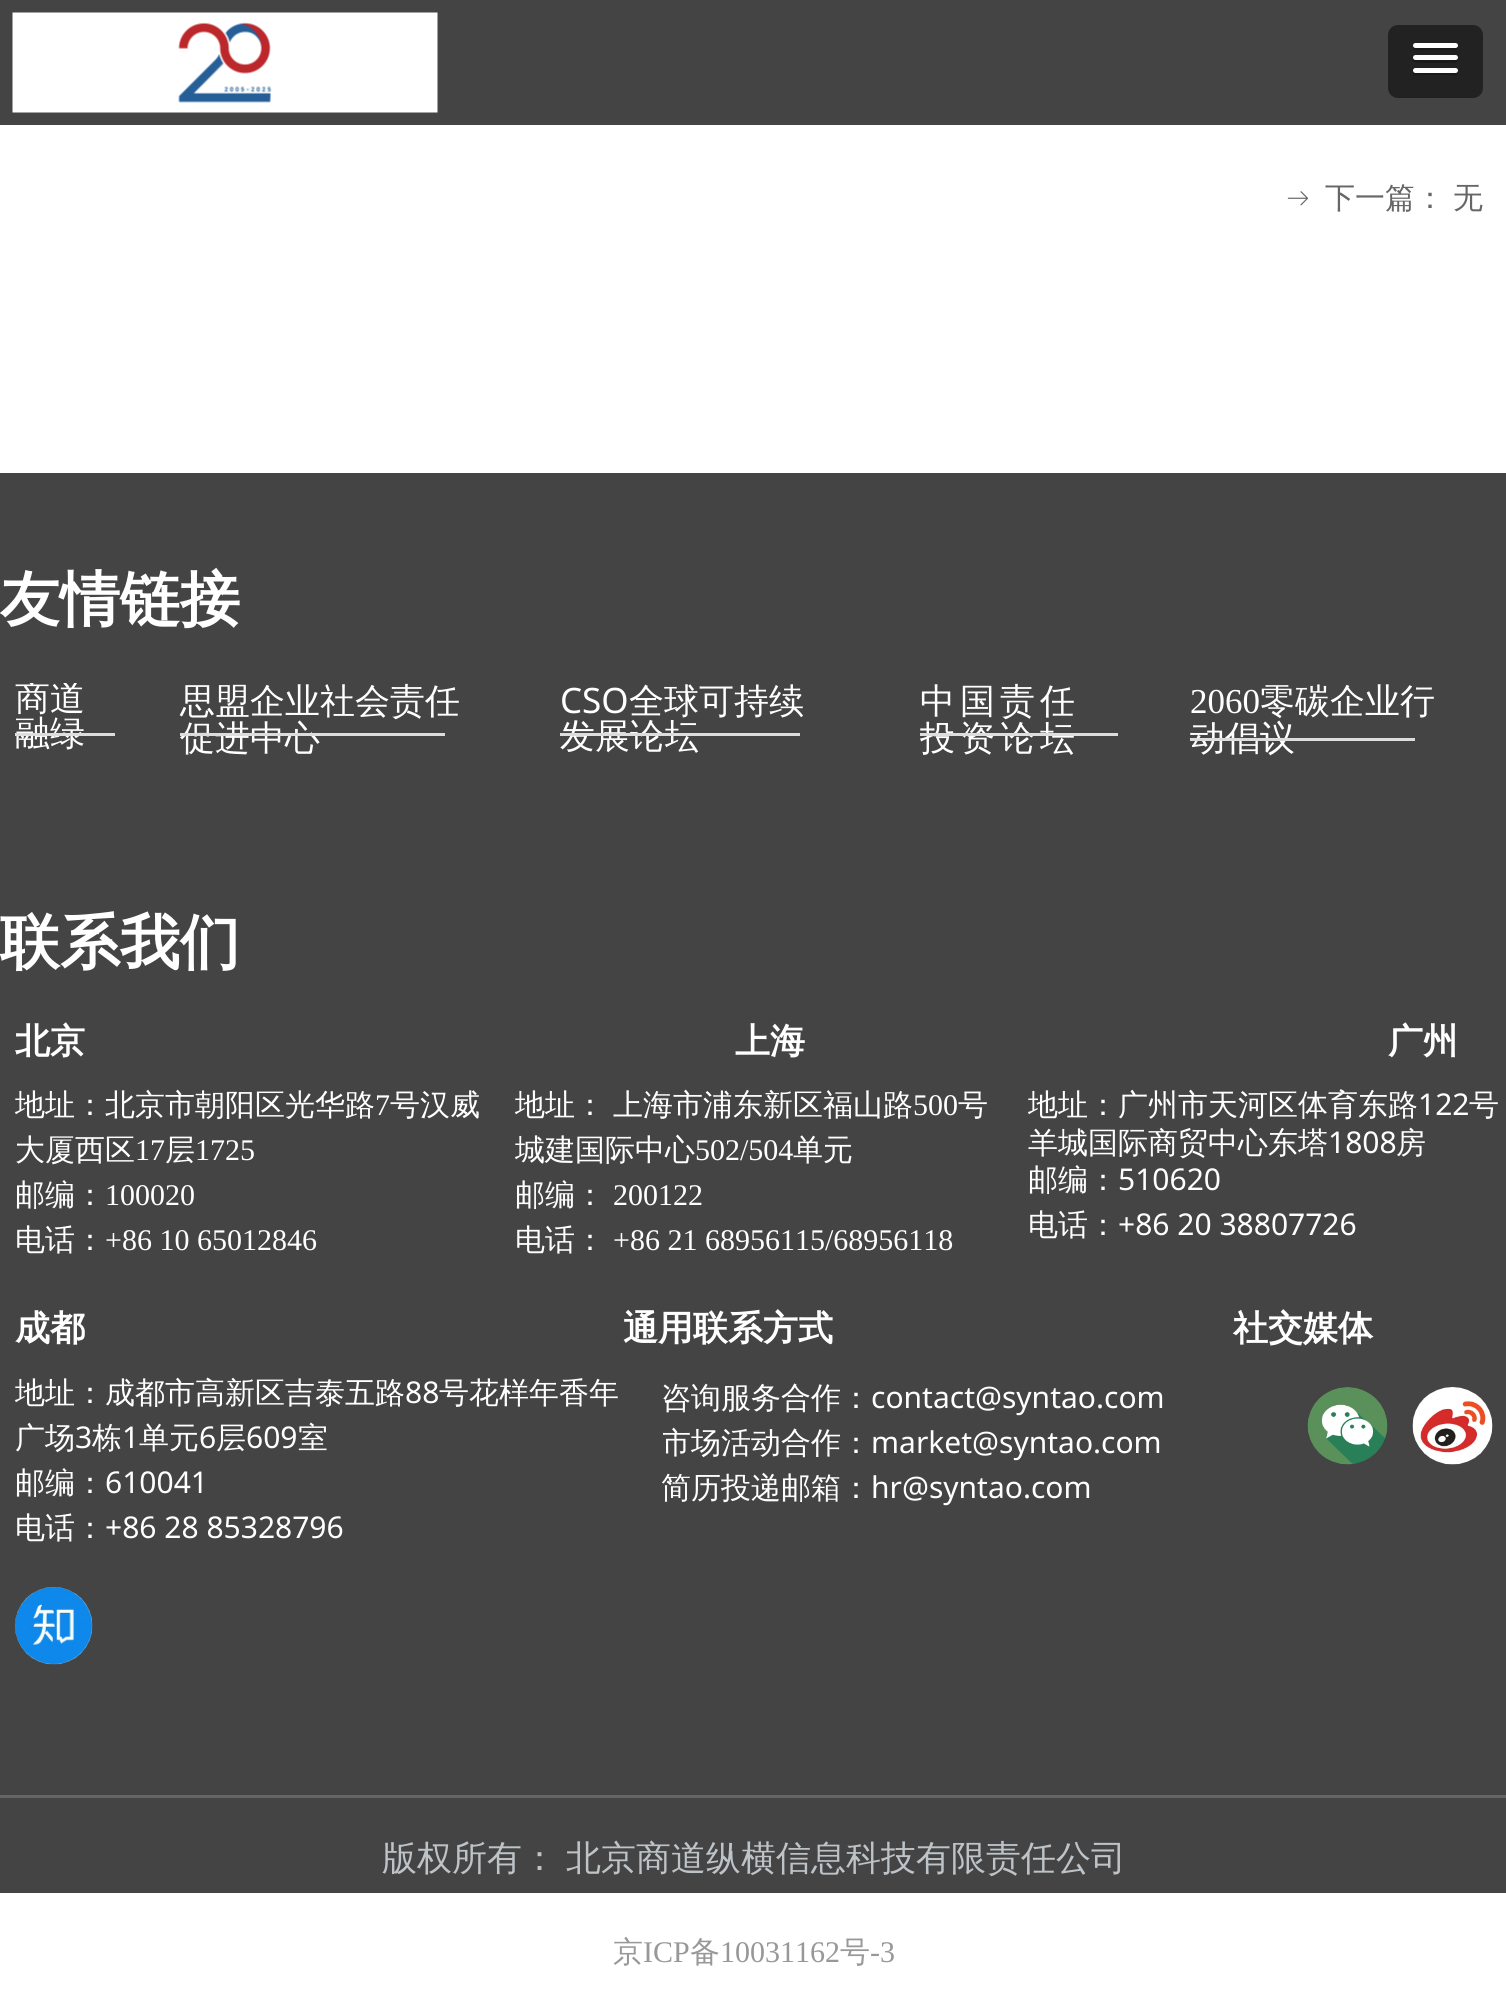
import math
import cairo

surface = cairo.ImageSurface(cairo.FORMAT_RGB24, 1506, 2008)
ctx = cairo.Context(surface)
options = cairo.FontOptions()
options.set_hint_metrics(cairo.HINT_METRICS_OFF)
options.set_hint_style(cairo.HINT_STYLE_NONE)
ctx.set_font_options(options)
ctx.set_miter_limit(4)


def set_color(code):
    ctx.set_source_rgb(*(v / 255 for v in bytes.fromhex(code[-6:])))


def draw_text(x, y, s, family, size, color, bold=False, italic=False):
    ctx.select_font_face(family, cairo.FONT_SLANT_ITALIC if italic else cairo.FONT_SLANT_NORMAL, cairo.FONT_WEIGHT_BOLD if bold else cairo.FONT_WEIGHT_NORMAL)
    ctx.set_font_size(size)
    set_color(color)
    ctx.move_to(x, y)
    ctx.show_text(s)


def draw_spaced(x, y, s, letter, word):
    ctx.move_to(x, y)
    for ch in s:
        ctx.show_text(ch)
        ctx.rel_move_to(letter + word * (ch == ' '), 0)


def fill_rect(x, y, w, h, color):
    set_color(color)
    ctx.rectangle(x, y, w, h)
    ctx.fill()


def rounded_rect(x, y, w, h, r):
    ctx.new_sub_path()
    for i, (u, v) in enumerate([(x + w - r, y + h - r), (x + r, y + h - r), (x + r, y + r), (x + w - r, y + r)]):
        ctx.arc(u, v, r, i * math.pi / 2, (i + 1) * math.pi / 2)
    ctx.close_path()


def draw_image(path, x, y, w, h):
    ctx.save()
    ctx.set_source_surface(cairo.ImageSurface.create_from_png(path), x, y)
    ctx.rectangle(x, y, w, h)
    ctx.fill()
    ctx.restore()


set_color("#ffffff")
ctx.paint()
fill_rect(0, 0, 1506, 125, "#444444")
draw_image("assets/img1.png", 12, 12, 426, 101)
set_color("#222222")
rounded_rect(1388, 25, 95, 73, 10)
ctx.fill()
set_color("#1a1a1a")
ctx.new_path()
ctx.move_to(1413, 47)
ctx.curve_to(1411, 52, 1421, 50, 1422, 50)
ctx.line_to(1449, 50)
ctx.curve_to(1450, 50, 1457, 52, 1458, 48)
ctx.line_to(1457, 46)
ctx.line_to(1455, 47)
ctx.line_to(1415, 47)
ctx.close_path()
ctx.fill()
set_color("#ffffff")
rounded_rect(1413, 43, 45, 5, 2.5)
ctx.fill()
set_color("#1a1a1a")
ctx.new_path()
ctx.move_to(1413, 59)
ctx.curve_to(1411, 64, 1422, 63, 1422, 63)
ctx.line_to(1449, 63)
ctx.curve_to(1450, 63, 1457, 65, 1458, 61)
ctx.line_to(1457, 59)
ctx.line_to(1455, 60)
ctx.curve_to(1452, 60, 1415, 61, 1413, 59)
ctx.close_path()
ctx.fill()
set_color("#ffffff")
rounded_rect(1413, 55, 45, 5, 2.5)
ctx.fill()
set_color("#1a1a1a")
ctx.new_path()
ctx.move_to(1413, 72)
ctx.curve_to(1411, 77, 1421, 75, 1422, 75)
ctx.line_to(1449, 75)
ctx.curve_to(1450, 75, 1457, 77, 1458, 73)
ctx.line_to(1457, 71)
ctx.line_to(1455, 72)
ctx.line_to(1415, 72)
ctx.close_path()
ctx.fill()
set_color("#ffffff")
rounded_rect(1413, 68, 45, 5, 2.5)
ctx.fill()
draw_image("assets/img2.png", 1287, 191, 22, 15)
draw_text(1325, 208, "下一篇：", "WenQuanYi Zen Hei Medium", 30, "#666666")
draw_text(1453, 208, "无", "WenQuanYi Zen Hei Medium", 30, "#666666")
fill_rect(0, 473, 1506, 1420, "#444444")
draw_text(0, 620, "友情链接", "WenQuanYi Zen Hei", 60, "#ffffff", bold=True)
ctx.save()
ctx.rectangle(15, 683, 103, 70)
ctx.clip()
draw_text(15, 710, "商道", "WenQuanYi Zen Hei Medium", 35, "#ffffff")
ctx.restore()
draw_text(15, 745, "融绿", "WenQuanYi Zen Hei Medium", 35, "#ffffff")
draw_text(180, 713, "思盟企业社会责任", "WenQuanYi Zen Hei Medium", 35, "#ffffff")
draw_text(180, 750, "促进中心", "WenQuanYi Zen Hei Medium", 35, "#ffffff")
draw_text(560, 713, "CSO", "Noto Sans", 35, "#ffffff")
draw_text(629, 713, "全球可持续", "WenQuanYi Zen Hei Medium", 35, "#ffffff")
draw_text(560, 748, "发展论坛", "WenQuanYi Zen Hei Medium", 35, "#ffffff")
draw_spaced(920, 713, "中国责任", 5, 0)
draw_spaced(920, 750, "投资论坛", 5, 0)
draw_text(1190, 713, "2060", "Liberation Serif", 35, "#ffffff")
draw_text(1260, 713, "零碳企业行", "WenQuanYi Zen Hei Medium", 35, "#ffffff")
draw_text(1190, 750, "动倡议", "WenQuanYi Zen Hei Medium", 35, "#ffffff")
fill_rect(15, 733, 100, 3, "#dddddd")
fill_rect(180, 733, 265, 3, "#dddddd")
fill_rect(560, 733, 240, 3, "#dddddd")
fill_rect(920, 733, 198, 3, "#dddddd")
fill_rect(1190, 738, 225, 3, "#dddddd")
draw_text(0, 963, "联系我们", "WenQuanYi Zen Hei", 60, "#ffffff", bold=True)
draw_text(15, 1053, "北京", "WenQuanYi Zen Hei", 35, "#ffffff", bold=True)
draw_text(735, 1053, "上海", "WenQuanYi Zen Hei", 35, "#ffffff", bold=True)
draw_text(1388, 1053, "广州", "WenQuanYi Zen Hei", 35, "#ffffff", bold=True)
draw_text(15, 1115, "地址：北京市朝阳区光华路", "WenQuanYi Zen Hei Medium", 30, "#ffffff")
draw_text(375, 1115, "7", "Liberation Serif", 30, "#ffffff")
draw_text(390, 1115, "号汉威", "WenQuanYi Zen Hei Medium", 30, "#ffffff")
draw_text(15, 1160, "大厦西区", "WenQuanYi Zen Hei Medium", 30, "#ffffff")
draw_text(135, 1160, "17", "Liberation Serif", 30, "#ffffff")
draw_text(165, 1160, "层", "WenQuanYi Zen Hei Medium", 30, "#ffffff")
draw_text(195, 1160, "1725", "Liberation Serif", 30, "#ffffff")
draw_text(15, 1205, "邮编：", "WenQuanYi Zen Hei Medium", 30, "#ffffff")
draw_text(105, 1205, "100020", "Liberation Serif", 30, "#ffffff")
draw_text(15, 1250, "电话：", "WenQuanYi Zen Hei Medium", 30, "#ffffff")
draw_text(105, 1250, "+86 10 65012846", "Liberation Serif", 30, "#ffffff")
ctx.select_font_face("WenQuanYi Zen Hei Medium")
draw_spaced(515, 1115, "地址： 上海市浦东新区福山路", 0, -1)
draw_text(913, 1115, "500", "Liberation Serif", 30, "#ffffff")
draw_text(958, 1115, "号", "WenQuanYi Zen Hei Medium", 30, "#ffffff")
draw_text(515, 1160, "城建国际中心", "WenQuanYi Zen Hei Medium", 30, "#ffffff")
draw_text(695, 1160, "502/504", "Liberation Serif", 30, "#ffffff")
draw_text(793, 1160, "单元", "WenQuanYi Zen Hei Medium", 30, "#ffffff")
draw_text(515, 1205, "邮编：", "WenQuanYi Zen Hei Medium", 30, "#ffffff")
draw_text(613, 1205, "200122", "Liberation Serif", 30, "#ffffff")
draw_text(515, 1250, "电话：", "WenQuanYi Zen Hei Medium", 30, "#ffffff")
draw_text(613, 1250, "+86 21 68956115/68956118", "Liberation Serif", 30, "#ffffff")
ctx.save()
ctx.rectangle(1028, 1083, 475, 187)
ctx.clip()
draw_text(1028, 1115, "地址：", "WenQuanYi Zen Hei Medium", 30, "#ffffff")
ctx.restore()
draw_text(1118, 1115, "广州市天河区体育东路", "WenQuanYi Zen Hei Medium", 30, "#ffffff")
draw_text(1418, 1115, "122", "Noto Sans", 30, "#ffffff")
draw_text(1469, 1115, "号", "WenQuanYi Zen Hei Medium", 30, "#ffffff")
draw_text(1028, 1153, "羊城国际商贸中心东塔", "WenQuanYi Zen Hei Medium", 30, "#ffffff")
draw_text(1328, 1153, "1808", "Noto Sans", 30, "#ffffff")
draw_text(1396, 1153, "房", "WenQuanYi Zen Hei Medium", 30, "#ffffff")
draw_text(1028, 1190, "邮编：", "WenQuanYi Zen Hei Medium", 30, "#ffffff")
draw_text(1118, 1190, "510620", "Noto Sans", 30, "#ffffff")
draw_text(1028, 1235, "电话：", "WenQuanYi Zen Hei Medium", 30, "#ffffff")
draw_text(1118, 1235, "+86 20 38807726", "Noto Sans", 30, "#ffffff")
draw_text(15, 1340, "成都", "WenQuanYi Zen Hei", 35, "#ffffff", bold=True)
draw_text(623, 1340, "通用联系方式", "WenQuanYi Zen Hei", 35, "#ffffff", bold=True)
draw_text(1233, 1340, "社交媒体", "WenQuanYi Zen Hei", 35, "#ffffff", bold=True)
draw_text(15, 1403, "地址：成都市高新区吉泰五路", "WenQuanYi Zen Hei Medium", 30, "#ffffff")
draw_text(405, 1403, "88", "Noto Sans", 30, "#ffffff")
draw_text(439, 1403, "号花样年香年", "WenQuanYi Zen Hei Medium", 30, "#ffffff")
draw_text(15, 1448, "广场", "WenQuanYi Zen Hei Medium", 30, "#ffffff")
draw_text(75, 1448, "3", "Noto Sans", 30, "#ffffff")
draw_text(92, 1448, "栋", "WenQuanYi Zen Hei Medium", 30, "#ffffff")
draw_text(122, 1448, "1", "Noto Sans", 30, "#ffffff")
draw_text(139, 1448, "单元", "WenQuanYi Zen Hei Medium", 30, "#ffffff")
draw_text(199, 1448, "6", "Noto Sans", 30, "#ffffff")
draw_text(216, 1448, "层", "WenQuanYi Zen Hei Medium", 30, "#ffffff")
draw_text(246, 1448, "609", "Noto Sans", 30, "#ffffff")
draw_text(298, 1448, "室", "WenQuanYi Zen Hei Medium", 30, "#ffffff")
draw_text(15, 1493, "邮编：", "WenQuanYi Zen Hei Medium", 30, "#ffffff")
draw_text(105, 1493, "610041", "Noto Sans", 30, "#ffffff")
draw_text(15, 1538, "电话：", "WenQuanYi Zen Hei Medium", 30, "#ffffff")
draw_text(105, 1538, "+86 28 85328796", "Noto Sans", 30, "#ffffff")
draw_text(661, 1408, "咨询服务合作：", "WenQuanYi Zen Hei Medium", 30, "#ffffff")
draw_text(871, 1408, "contact@syntao.com", "Noto Sans", 30, "#ffffff")
ctx.save()
ctx.rectangle(663, 1375, 620, 188)
ctx.clip()
draw_text(661, 1453, "市场活动合作：", "WenQuanYi Zen Hei Medium", 30, "#ffffff")
ctx.restore()
draw_text(871, 1453, "market@syntao.com", "Noto Sans", 30, "#ffffff")
draw_text(661, 1498, "简历投递邮箱：", "WenQuanYi Zen Hei Medium", 30, "#ffffff")
draw_text(871, 1498, "hr@syntao.com", "Noto Sans", 30, "#ffffff")
draw_image("assets/img3.png", 1307, 1387, 81, 78)
draw_image("assets/img4.png", 1412, 1387, 81, 78)
draw_image("assets/img5.png", 15, 1587, 78, 78)
fill_rect(0, 1795, 1506, 3, "#666666")
draw_text(382, 1870, "版权所有：", "WenQuanYi Zen Hei Medium", 35, "#bdc3c7")
draw_text(566, 1870, "北京商道纵横信息科技有限责任公司", "WenQuanYi Zen Hei Medium", 35, "#bdc3c7")
draw_text(613, 1962, "京", "WenQuanYi Zen Hei Medium", 30, "#989898")
draw_text(643, 1962, "ICP", "Liberation Serif", 30, "#989898")
draw_text(690, 1962, "备", "WenQuanYi Zen Hei Medium", 30, "#989898")
draw_text(720, 1962, "10031162", "Liberation Serif", 30, "#989898")
draw_text(840, 1962, "号", "WenQuanYi Zen Hei Medium", 30, "#989898")
draw_text(870, 1962, "-3", "Liberation Serif", 30, "#989898")
surface.write_to_png("output.png")
